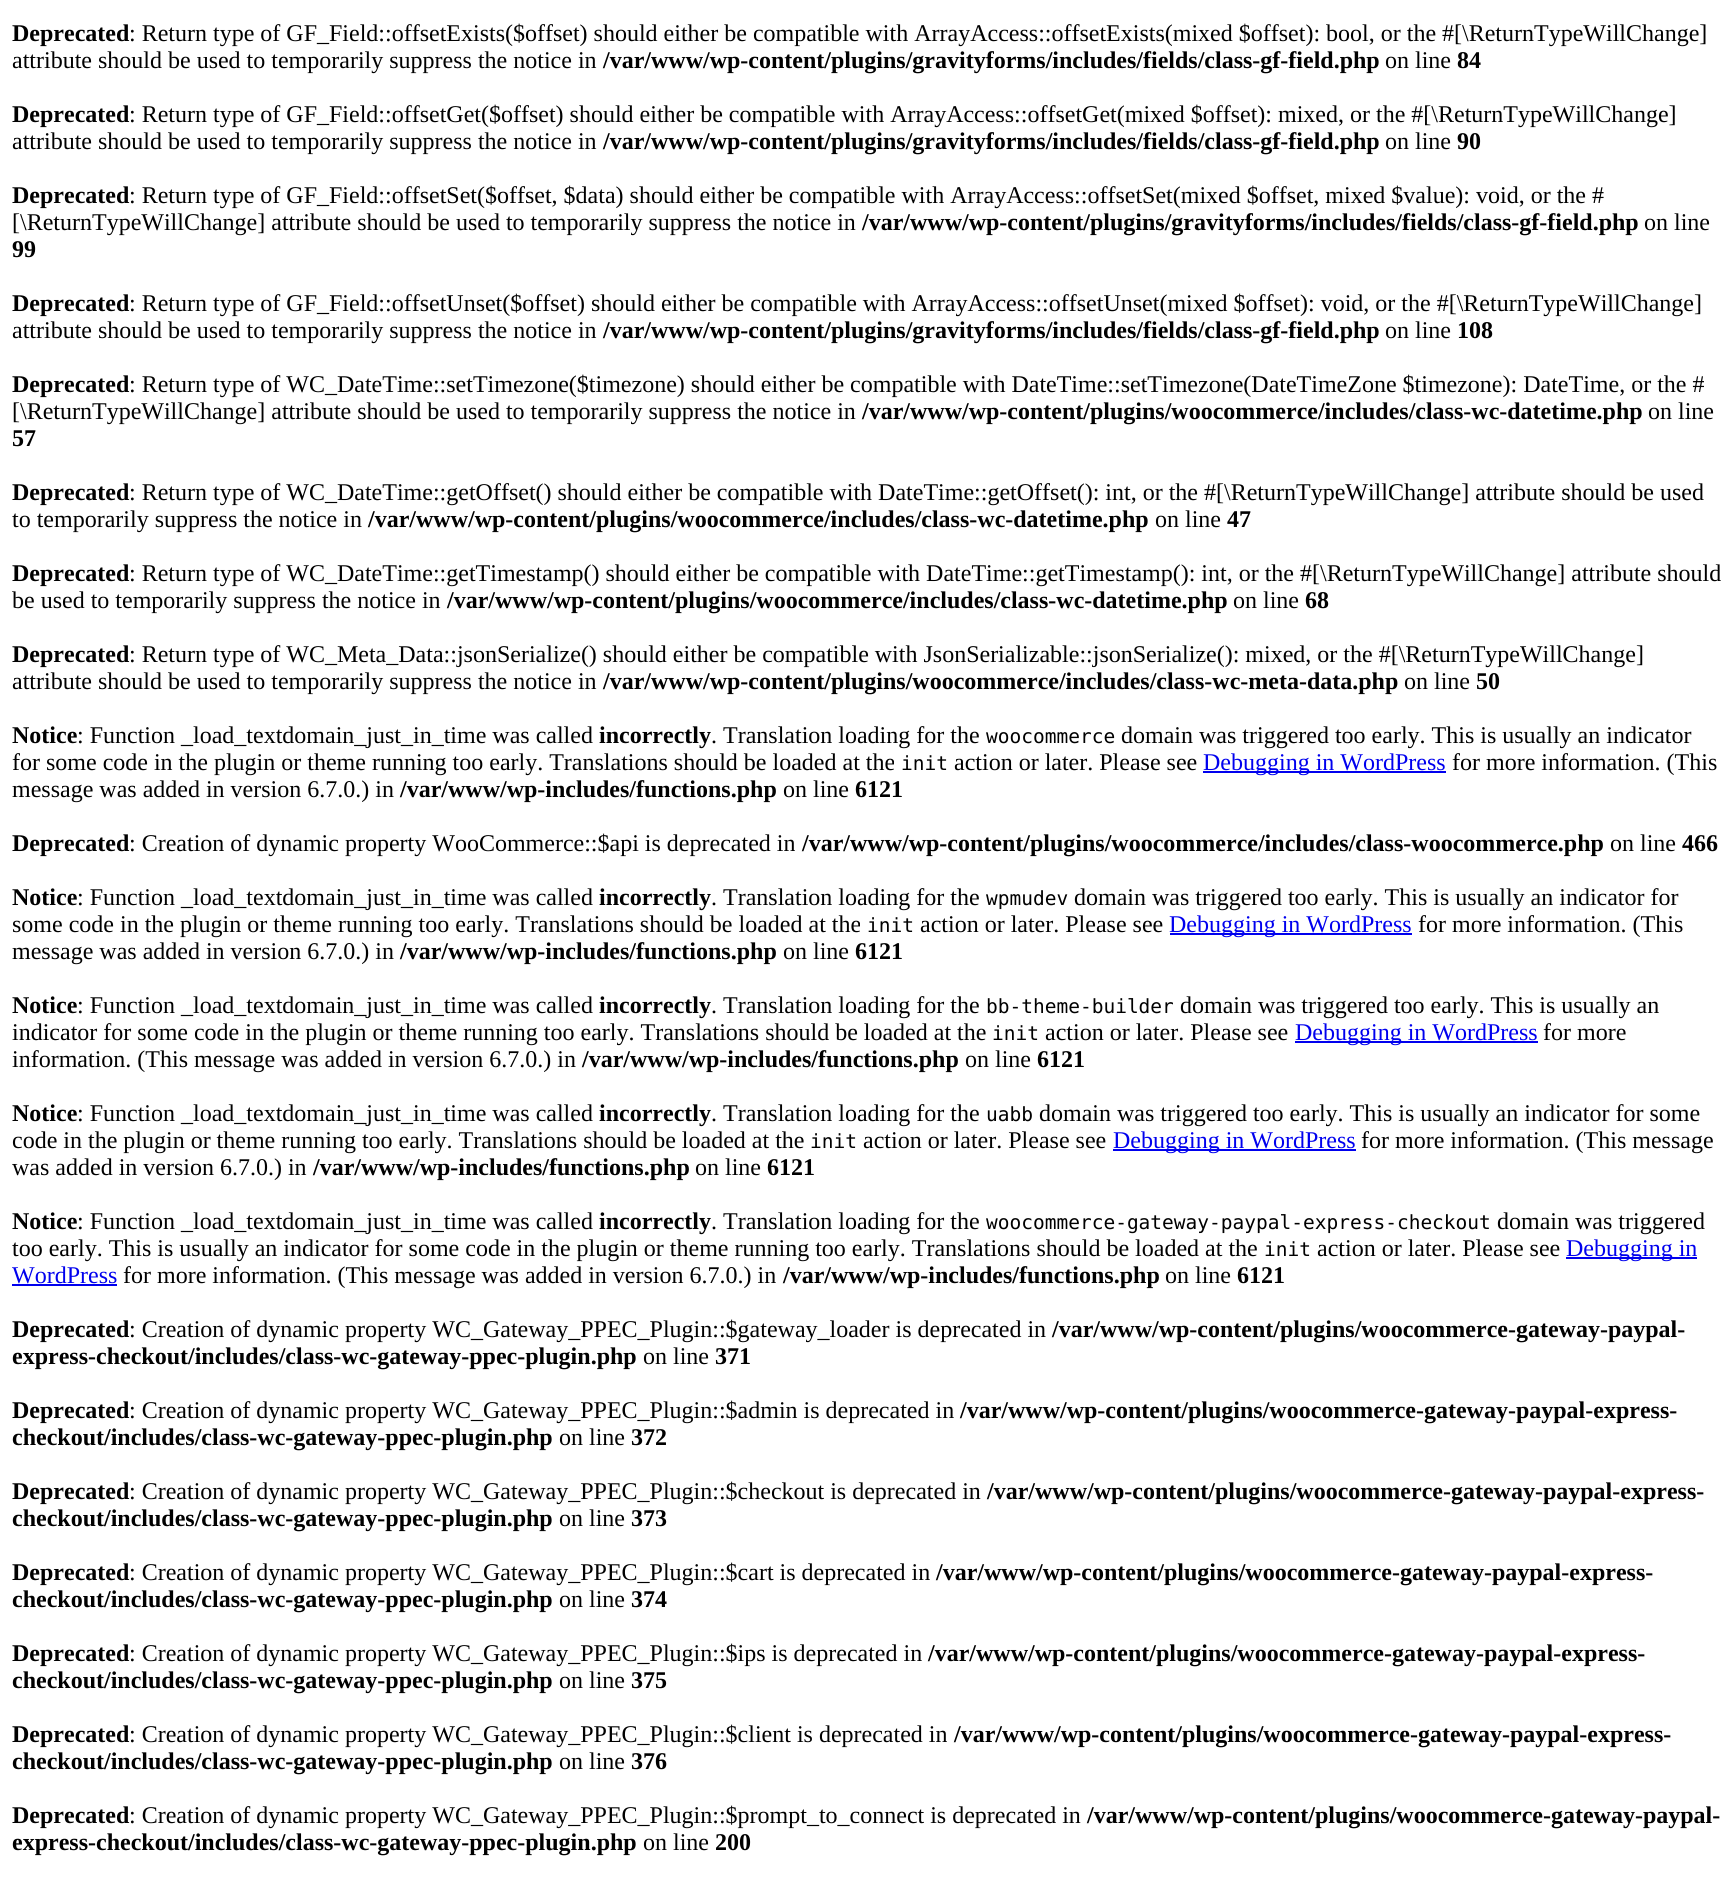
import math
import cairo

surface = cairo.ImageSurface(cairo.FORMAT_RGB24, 1736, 1879)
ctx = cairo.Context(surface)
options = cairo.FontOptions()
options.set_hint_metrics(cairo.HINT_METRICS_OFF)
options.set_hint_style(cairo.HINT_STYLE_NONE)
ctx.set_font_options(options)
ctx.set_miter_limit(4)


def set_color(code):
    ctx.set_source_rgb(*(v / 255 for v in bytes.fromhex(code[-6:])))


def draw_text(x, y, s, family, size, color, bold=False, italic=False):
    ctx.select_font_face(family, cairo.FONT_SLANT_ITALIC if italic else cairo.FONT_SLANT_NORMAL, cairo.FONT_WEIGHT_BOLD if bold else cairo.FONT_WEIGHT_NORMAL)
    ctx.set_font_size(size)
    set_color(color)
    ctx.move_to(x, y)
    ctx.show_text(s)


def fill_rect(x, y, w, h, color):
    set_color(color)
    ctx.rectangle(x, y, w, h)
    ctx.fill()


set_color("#ffffff")
ctx.paint()
draw_text(12, 41, "Deprecated", "Liberation Serif", 24, "#000000", bold=True)
draw_text(129, 41, ": Return type of GF_Field::offsetExists($offset) should either be compatible with ArrayAccess::offsetExists(mixed $offset): bool, or the #[\\ReturnTypeWillChange]", "Liberation Serif", 24, "#000000")
draw_text(12, 68, "attribute should be used to temporarily suppress the notice in", "Liberation Serif", 24, "#000000")
draw_text(603, 68, "/var/www/wp-content/plugins/gravityforms/includes/fields/class-gf-field.php", "Liberation Serif", 24, "#000000", bold=True)
draw_text(1385, 68, "on line", "Liberation Serif", 24, "#000000")
draw_text(1457, 68, "84", "Liberation Serif", 24, "#000000", bold=True)
draw_text(12, 122, "Deprecated", "Liberation Serif", 24, "#000000", bold=True)
draw_text(129, 122, ": Return type of GF_Field::offsetGet($offset) should either be compatible with ArrayAccess::offsetGet(mixed $offset): mixed, or the #[\\ReturnTypeWillChange]", "Liberation Serif", 24, "#000000")
draw_text(12, 149, "attribute should be used to temporarily suppress the notice in", "Liberation Serif", 24, "#000000")
draw_text(603, 149, "/var/www/wp-content/plugins/gravityforms/includes/fields/class-gf-field.php", "Liberation Serif", 24, "#000000", bold=True)
draw_text(1385, 149, "on line", "Liberation Serif", 24, "#000000")
draw_text(1457, 149, "90", "Liberation Serif", 24, "#000000", bold=True)
draw_text(12, 203, "Deprecated", "Liberation Serif", 24, "#000000", bold=True)
draw_text(129, 203, ": Return type of GF_Field::offsetSet($offset, $data) should either be compatible with ArrayAccess::offsetSet(mixed $offset, mixed $value): void, or the #", "Liberation Serif", 24, "#000000")
draw_text(12, 230, "[\\ReturnTypeWillChange] attribute should be used to temporarily suppress the notice in", "Liberation Serif", 24, "#000000")
draw_text(862, 230, "/var/www/wp-content/plugins/gravityforms/includes/fields/class-gf-field.php", "Liberation Serif", 24, "#000000", bold=True)
draw_text(1644, 230, "on line", "Liberation Serif", 24, "#000000")
draw_text(12, 257, "99", "Liberation Serif", 24, "#000000", bold=True)
draw_text(12, 311, "Deprecated", "Liberation Serif", 24, "#000000", bold=True)
draw_text(129, 311, ": Return type of GF_Field::offsetUnset($offset) should either be compatible with ArrayAccess::offsetUnset(mixed $offset): void, or the #[\\ReturnTypeWillChange]", "Liberation Serif", 24, "#000000")
draw_text(12, 338, "attribute should be used to temporarily suppress the notice in", "Liberation Serif", 24, "#000000")
draw_text(603, 338, "/var/www/wp-content/plugins/gravityforms/includes/fields/class-gf-field.php", "Liberation Serif", 24, "#000000", bold=True)
draw_text(1385, 338, "on line", "Liberation Serif", 24, "#000000")
draw_text(1457, 338, "108", "Liberation Serif", 24, "#000000", bold=True)
draw_text(12, 392, "Deprecated", "Liberation Serif", 24, "#000000", bold=True)
draw_text(129, 392, ": Return type of WC_DateTime::setTimezone($timezone) should either be compatible with DateTime::setTimezone(DateTimeZone $timezone): DateTime, or the #", "Liberation Serif", 24, "#000000")
draw_text(12, 419, "[\\ReturnTypeWillChange] attribute should be used to temporarily suppress the notice in", "Liberation Serif", 24, "#000000")
draw_text(862, 419, "/var/www/wp-content/plugins/woocommerce/includes/class-wc-datetime.php", "Liberation Serif", 24, "#000000", bold=True)
draw_text(1648, 419, "on line", "Liberation Serif", 24, "#000000")
draw_text(12, 446, "57", "Liberation Serif", 24, "#000000", bold=True)
draw_text(12, 500, "Deprecated", "Liberation Serif", 24, "#000000", bold=True)
draw_text(129, 500, ": Return type of WC_DateTime::getOffset() should either be compatible with DateTime::getOffset(): int, or the #[\\ReturnTypeWillChange] attribute should be used", "Liberation Serif", 24, "#000000")
draw_text(12, 527, "to temporarily suppress the notice in", "Liberation Serif", 24, "#000000")
draw_text(368, 527, "/var/www/wp-content/plugins/woocommerce/includes/class-wc-datetime.php", "Liberation Serif", 24, "#000000", bold=True)
draw_text(1155, 527, "on line", "Liberation Serif", 24, "#000000")
draw_text(1227, 527, "47", "Liberation Serif", 24, "#000000", bold=True)
draw_text(12, 581, "Deprecated", "Liberation Serif", 24, "#000000", bold=True)
draw_text(129, 581, ": Return type of WC_DateTime::getTimestamp() should either be compatible with DateTime::getTimestamp(): int, or the #[\\ReturnTypeWillChange] attribute should", "Liberation Serif", 24, "#000000")
draw_text(12, 608, "be used to temporarily suppress the notice in", "Liberation Serif", 24, "#000000")
draw_text(447, 608, "/var/www/wp-content/plugins/woocommerce/includes/class-wc-datetime.php", "Liberation Serif", 24, "#000000", bold=True)
draw_text(1233, 608, "on line", "Liberation Serif", 24, "#000000")
draw_text(1305, 608, "68", "Liberation Serif", 24, "#000000", bold=True)
draw_text(12, 662, "Deprecated", "Liberation Serif", 24, "#000000", bold=True)
draw_text(129, 662, ": Return type of WC_Meta_Data::jsonSerialize() should either be compatible with JsonSerializable::jsonSerialize(): mixed, or the #[\\ReturnTypeWillChange]", "Liberation Serif", 24, "#000000")
draw_text(12, 689, "attribute should be used to temporarily suppress the notice in", "Liberation Serif", 24, "#000000")
draw_text(603, 689, "/var/www/wp-content/plugins/woocommerce/includes/class-wc-meta-data.php", "Liberation Serif", 24, "#000000", bold=True)
draw_text(1404, 689, "on line", "Liberation Serif", 24, "#000000")
draw_text(1476, 689, "50", "Liberation Serif", 24, "#000000", bold=True)
draw_text(12, 743, "Notice", "Liberation Serif", 24, "#000000", bold=True)
draw_text(77, 743, ": Function _load_textdomain_just_in_time was called", "Liberation Serif", 24, "#000000")
draw_text(599, 743, "incorrectly", "Liberation Serif", 24, "#000000", bold=True)
draw_text(711, 743, ". Translation loading for the", "Liberation Serif", 24, "#000000")
draw_text(986, 743, "woocommerce", "DejaVu Sans Mono", 19.5, "#000000")
draw_text(1121, 743, "domain was triggered too early. This is usually an indicator", "Liberation Serif", 24, "#000000")
draw_text(12, 770, "for some code in the plugin or theme running too early. Translations should be loaded at the", "Liberation Serif", 24, "#000000")
draw_text(901, 770, "init", "DejaVu Sans Mono", 19.5, "#000000")
draw_text(954, 770, "action or later. Please see", "Liberation Serif", 24, "#000000")
fill_rect(1203, 771, 243, 2, "#0000ee")
draw_text(1203, 770, "Debugging in WordPress", "Liberation Serif", 24, "#0000ee")
draw_text(1452, 770, "for more information. (This", "Liberation Serif", 24, "#000000")
draw_text(12, 797, "message was added in version 6.7.0.) in", "Liberation Serif", 24, "#000000")
draw_text(400, 797, "/var/www/wp-includes/functions.php", "Liberation Serif", 24, "#000000", bold=True)
draw_text(783, 797, "on line", "Liberation Serif", 24, "#000000")
draw_text(855, 797, "6121", "Liberation Serif", 24, "#000000", bold=True)
draw_text(12, 851, "Deprecated", "Liberation Serif", 24, "#000000", bold=True)
draw_text(129, 851, ": Creation of dynamic property WooCommerce::$api is deprecated in", "Liberation Serif", 24, "#000000")
draw_text(802, 851, "/var/www/wp-content/plugins/woocommerce/includes/class-woocommerce.php", "Liberation Serif", 24, "#000000", bold=True)
draw_text(1610, 851, "on line", "Liberation Serif", 24, "#000000")
draw_text(1682, 851, "466", "Liberation Serif", 24, "#000000", bold=True)
draw_text(12, 905, "Notice", "Liberation Serif", 24, "#000000", bold=True)
draw_text(77, 905, ": Function _load_textdomain_just_in_time was called", "Liberation Serif", 24, "#000000")
draw_text(599, 905, "incorrectly", "Liberation Serif", 24, "#000000", bold=True)
draw_text(711, 905, ". Translation loading for the", "Liberation Serif", 24, "#000000")
draw_text(986, 905, "wpmudev", "DejaVu Sans Mono", 19.5, "#000000")
draw_text(1074, 905, "domain was triggered too early. This is usually an indicator for", "Liberation Serif", 24, "#000000")
draw_text(12, 932, "some code in the plugin or theme running too early. Translations should be loaded at the", "Liberation Serif", 24, "#000000")
draw_text(867, 932, "init", "DejaVu Sans Mono", 19.5, "#000000")
draw_text(920, 932, "action or later. Please see", "Liberation Serif", 24, "#000000")
fill_rect(1170, 933, 242, 2, "#0000ee")
draw_text(1169, 932, "Debugging in WordPress", "Liberation Serif", 24, "#0000ee")
draw_text(1418, 932, "for more information. (This", "Liberation Serif", 24, "#000000")
draw_text(12, 959, "message was added in version 6.7.0.) in", "Liberation Serif", 24, "#000000")
draw_text(400, 959, "/var/www/wp-includes/functions.php", "Liberation Serif", 24, "#000000", bold=True)
draw_text(783, 959, "on line", "Liberation Serif", 24, "#000000")
draw_text(855, 959, "6121", "Liberation Serif", 24, "#000000", bold=True)
draw_text(12, 1013, "Notice", "Liberation Serif", 24, "#000000", bold=True)
draw_text(77, 1013, ": Function _load_textdomain_just_in_time was called", "Liberation Serif", 24, "#000000")
draw_text(599, 1013, "incorrectly", "Liberation Serif", 24, "#000000", bold=True)
draw_text(711, 1013, ". Translation loading for the", "Liberation Serif", 24, "#000000")
draw_text(986, 1013, "bb-theme-builder", "DejaVu Sans Mono", 19.5, "#000000")
draw_text(1180, 1013, "domain was triggered too early. This is usually an", "Liberation Serif", 24, "#000000")
draw_text(12, 1040, "indicator for some code in the plugin or theme running too early. Translations should be loaded at the", "Liberation Serif", 24, "#000000")
draw_text(992, 1040, "init", "DejaVu Sans Mono", 19.5, "#000000")
draw_text(1045, 1040, "action or later. Please see", "Liberation Serif", 24, "#000000")
fill_rect(1295, 1041, 243, 2, "#0000ee")
draw_text(1295, 1040, "Debugging in WordPress", "Liberation Serif", 24, "#0000ee")
draw_text(1543, 1040, "for more", "Liberation Serif", 24, "#000000")
draw_text(12, 1067, "information. (This message was added in version 6.7.0.) in", "Liberation Serif", 24, "#000000")
draw_text(582, 1067, "/var/www/wp-includes/functions.php", "Liberation Serif", 24, "#000000", bold=True)
draw_text(965, 1067, "on line", "Liberation Serif", 24, "#000000")
draw_text(1037, 1067, "6121", "Liberation Serif", 24, "#000000", bold=True)
draw_text(12, 1121, "Notice", "Liberation Serif", 24, "#000000", bold=True)
draw_text(77, 1121, ": Function _load_textdomain_just_in_time was called", "Liberation Serif", 24, "#000000")
draw_text(599, 1121, "incorrectly", "Liberation Serif", 24, "#000000", bold=True)
draw_text(711, 1121, ". Translation loading for the", "Liberation Serif", 24, "#000000")
draw_text(986, 1121, "uabb", "DejaVu Sans Mono", 19.5, "#000000")
draw_text(1039, 1121, "domain was triggered too early. This is usually an indicator for some", "Liberation Serif", 24, "#000000")
draw_text(12, 1148, "code in the plugin or theme running too early. Translations should be loaded at the", "Liberation Serif", 24, "#000000")
draw_text(810, 1148, "init", "DejaVu Sans Mono", 19.5, "#000000")
draw_text(863, 1148, "action or later. Please see", "Liberation Serif", 24, "#000000")
fill_rect(1113, 1149, 243, 2, "#0000ee")
draw_text(1113, 1148, "Debugging in WordPress", "Liberation Serif", 24, "#0000ee")
draw_text(1361, 1148, "for more information. (This message", "Liberation Serif", 24, "#000000")
draw_text(12, 1175, "was added in version 6.7.0.) in", "Liberation Serif", 24, "#000000")
draw_text(313, 1175, "/var/www/wp-includes/functions.php", "Liberation Serif", 24, "#000000", bold=True)
draw_text(695, 1175, "on line", "Liberation Serif", 24, "#000000")
draw_text(767, 1175, "6121", "Liberation Serif", 24, "#000000", bold=True)
draw_text(12, 1229, "Notice", "Liberation Serif", 24, "#000000", bold=True)
draw_text(77, 1229, ": Function _load_textdomain_just_in_time was called", "Liberation Serif", 24, "#000000")
draw_text(599, 1229, "incorrectly", "Liberation Serif", 24, "#000000", bold=True)
draw_text(711, 1229, ". Translation loading for the", "Liberation Serif", 24, "#000000")
draw_text(986, 1229, "woocommerce-gateway-paypal-express-checkout", "DejaVu Sans Mono", 19.5, "#000000")
draw_text(1497, 1229, "domain was triggered", "Liberation Serif", 24, "#000000")
draw_text(12, 1256, "too early. This is usually an indicator for some code in the plugin or theme running too early. Translations should be loaded at the", "Liberation Serif", 24, "#000000")
draw_text(1264, 1256, "init", "DejaVu Sans Mono", 19.5, "#000000")
draw_text(1317, 1256, "action or later. Please see", "Liberation Serif", 24, "#000000")
fill_rect(1566, 1257, 131, 2, "#0000ee")
draw_text(1566, 1256, "Debugging in", "Liberation Serif", 24, "#0000ee")
draw_text(12, 1283, "WordPress", "Liberation Serif", 24, "#0000ee")
fill_rect(12, 1284, 105, 2, "#0000ee")
draw_text(123, 1283, "for more information. (This message was added in version 6.7.0.) in", "Liberation Serif", 24, "#000000")
draw_text(783, 1283, "/var/www/wp-includes/functions.php", "Liberation Serif", 24, "#000000", bold=True)
draw_text(1165, 1283, "on line", "Liberation Serif", 24, "#000000")
draw_text(1237, 1283, "6121", "Liberation Serif", 24, "#000000", bold=True)
draw_text(12, 1337, "Deprecated", "Liberation Serif", 24, "#000000", bold=True)
draw_text(129, 1337, ": Creation of dynamic property WC_Gateway_PPEC_Plugin::$gateway_loader is deprecated in", "Liberation Serif", 24, "#000000")
draw_text(1052, 1337, "/var/www/wp-content/plugins/woocommerce-gateway-paypal-", "Liberation Serif", 24, "#000000", bold=True)
draw_text(12, 1364, "express-checkout/includes/class-wc-gateway-ppec-plugin.php", "Liberation Serif", 24, "#000000", bold=True)
draw_text(643, 1364, "on line", "Liberation Serif", 24, "#000000")
draw_text(715, 1364, "371", "Liberation Serif", 24, "#000000", bold=True)
draw_text(12, 1418, "Deprecated", "Liberation Serif", 24, "#000000", bold=True)
draw_text(129, 1418, ": Creation of dynamic property WC_Gateway_PPEC_Plugin::$admin is deprecated in", "Liberation Serif", 24, "#000000")
draw_text(960, 1418, "/var/www/wp-content/plugins/woocommerce-gateway-paypal-express-", "Liberation Serif", 24, "#000000", bold=True)
draw_text(12, 1445, "checkout/includes/class-wc-gateway-ppec-plugin.php", "Liberation Serif", 24, "#000000", bold=True)
draw_text(559, 1445, "on line", "Liberation Serif", 24, "#000000")
draw_text(631, 1445, "372", "Liberation Serif", 24, "#000000", bold=True)
draw_text(12, 1499, "Deprecated", "Liberation Serif", 24, "#000000", bold=True)
draw_text(129, 1499, ": Creation of dynamic property WC_Gateway_PPEC_Plugin::$checkout is deprecated in", "Liberation Serif", 24, "#000000")
draw_text(987, 1499, "/var/www/wp-content/plugins/woocommerce-gateway-paypal-express-", "Liberation Serif", 24, "#000000", bold=True)
draw_text(12, 1526, "checkout/includes/class-wc-gateway-ppec-plugin.php", "Liberation Serif", 24, "#000000", bold=True)
draw_text(559, 1526, "on line", "Liberation Serif", 24, "#000000")
draw_text(631, 1526, "373", "Liberation Serif", 24, "#000000", bold=True)
draw_text(12, 1580, "Deprecated", "Liberation Serif", 24, "#000000", bold=True)
draw_text(129, 1580, ": Creation of dynamic property WC_Gateway_PPEC_Plugin::$cart is deprecated in", "Liberation Serif", 24, "#000000")
draw_text(936, 1580, "/var/www/wp-content/plugins/woocommerce-gateway-paypal-express-", "Liberation Serif", 24, "#000000", bold=True)
draw_text(12, 1607, "checkout/includes/class-wc-gateway-ppec-plugin.php", "Liberation Serif", 24, "#000000", bold=True)
draw_text(559, 1607, "on line", "Liberation Serif", 24, "#000000")
draw_text(631, 1607, "374", "Liberation Serif", 24, "#000000", bold=True)
draw_text(12, 1661, "Deprecated", "Liberation Serif", 24, "#000000", bold=True)
draw_text(129, 1661, ": Creation of dynamic property WC_Gateway_PPEC_Plugin::$ips is deprecated in", "Liberation Serif", 24, "#000000")
draw_text(928, 1661, "/var/www/wp-content/plugins/woocommerce-gateway-paypal-express-", "Liberation Serif", 24, "#000000", bold=True)
draw_text(12, 1688, "checkout/includes/class-wc-gateway-ppec-plugin.php", "Liberation Serif", 24, "#000000", bold=True)
draw_text(559, 1688, "on line", "Liberation Serif", 24, "#000000")
draw_text(631, 1688, "375", "Liberation Serif", 24, "#000000", bold=True)
draw_text(12, 1742, "Deprecated", "Liberation Serif", 24, "#000000", bold=True)
draw_text(129, 1742, ": Creation of dynamic property WC_Gateway_PPEC_Plugin::$client is deprecated in", "Liberation Serif", 24, "#000000")
draw_text(954, 1742, "/var/www/wp-content/plugins/woocommerce-gateway-paypal-express-", "Liberation Serif", 24, "#000000", bold=True)
draw_text(12, 1769, "checkout/includes/class-wc-gateway-ppec-plugin.php", "Liberation Serif", 24, "#000000", bold=True)
draw_text(559, 1769, "on line", "Liberation Serif", 24, "#000000")
draw_text(631, 1769, "376", "Liberation Serif", 24, "#000000", bold=True)
draw_text(12, 1823, "Deprecated", "Liberation Serif", 24, "#000000", bold=True)
draw_text(129, 1823, ": Creation of dynamic property WC_Gateway_PPEC_Plugin::$prompt_to_connect is deprecated in", "Liberation Serif", 24, "#000000")
draw_text(1087, 1823, "/var/www/wp-content/plugins/woocommerce-gateway-paypal-", "Liberation Serif", 24, "#000000", bold=True)
draw_text(12, 1850, "express-checkout/includes/class-wc-gateway-ppec-plugin.php", "Liberation Serif", 24, "#000000", bold=True)
draw_text(643, 1850, "on line", "Liberation Serif", 24, "#000000")
draw_text(715, 1850, "200", "Liberation Serif", 24, "#000000", bold=True)
surface.write_to_png("output.png")
